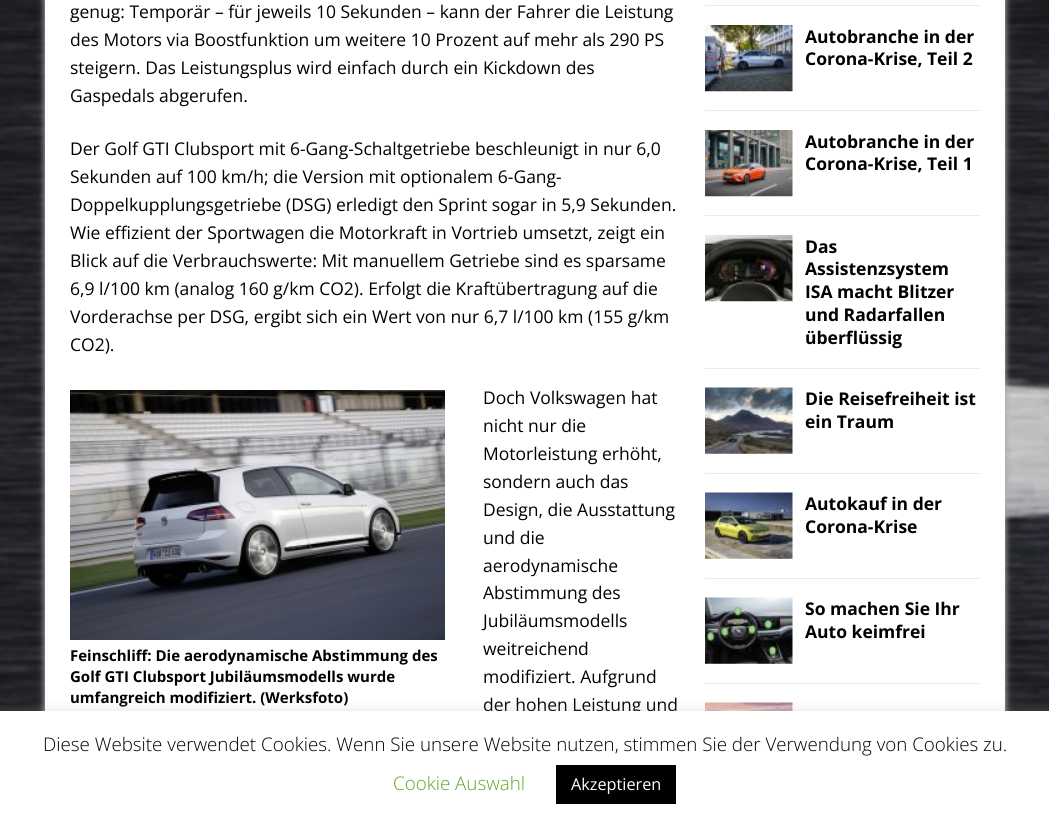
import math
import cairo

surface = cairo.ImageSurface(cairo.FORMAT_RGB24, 1049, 825)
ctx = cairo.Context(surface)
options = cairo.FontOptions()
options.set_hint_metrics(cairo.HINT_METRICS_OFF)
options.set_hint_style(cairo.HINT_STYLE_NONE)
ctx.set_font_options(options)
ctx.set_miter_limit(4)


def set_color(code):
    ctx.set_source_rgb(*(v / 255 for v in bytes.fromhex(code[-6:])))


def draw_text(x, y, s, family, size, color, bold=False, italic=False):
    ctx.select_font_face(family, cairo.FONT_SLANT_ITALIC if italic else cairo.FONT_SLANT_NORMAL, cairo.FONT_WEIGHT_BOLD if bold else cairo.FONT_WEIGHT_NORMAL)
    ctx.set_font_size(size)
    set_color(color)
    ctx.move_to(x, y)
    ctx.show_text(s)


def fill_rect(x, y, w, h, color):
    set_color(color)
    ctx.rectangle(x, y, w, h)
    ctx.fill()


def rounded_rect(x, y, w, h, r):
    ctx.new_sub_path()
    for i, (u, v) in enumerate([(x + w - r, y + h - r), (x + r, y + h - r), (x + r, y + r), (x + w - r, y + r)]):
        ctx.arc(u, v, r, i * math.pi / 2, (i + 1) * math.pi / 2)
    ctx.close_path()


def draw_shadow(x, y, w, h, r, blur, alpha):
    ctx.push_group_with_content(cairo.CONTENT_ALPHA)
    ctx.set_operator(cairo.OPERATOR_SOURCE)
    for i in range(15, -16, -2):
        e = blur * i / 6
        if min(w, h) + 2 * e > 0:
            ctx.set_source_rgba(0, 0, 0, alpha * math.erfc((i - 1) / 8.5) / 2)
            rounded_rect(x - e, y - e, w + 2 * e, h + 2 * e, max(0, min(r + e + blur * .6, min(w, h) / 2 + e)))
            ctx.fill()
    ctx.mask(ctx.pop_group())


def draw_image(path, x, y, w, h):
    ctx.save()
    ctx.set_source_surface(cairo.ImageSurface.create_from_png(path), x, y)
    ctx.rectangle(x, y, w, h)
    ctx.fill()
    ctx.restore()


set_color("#ffffff")
ctx.paint()
draw_image("assets/img1.png", 0, 0, 1049, 711)
set_color("#a8a8a8")
draw_shadow(44, -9, 962, 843, 0, 3, 1)
fill_rect(45, 0, 960, 711, "#ffffff")
draw_text(70, 18, "genug: Temporär – für jeweils 10 Sekunden – kann der Fahrer die Leistung", "Open Sans", 17.5, "#000000")
draw_text(70, 46, "des Motors via Boostfunktion um weitere 10 Prozent auf mehr als 290 PS", "Open Sans", 17.5, "#000000")
draw_text(70, 74, "steigern. Das Leistungsplus wird einfach durch ein Kickdown des", "Open Sans", 17.5, "#000000")
draw_text(70, 102, "Gaspedals abgerufen.", "Open Sans", 17.5, "#000000")
draw_text(70, 155, "Der Golf GTI Clubsport mit 6-Gang-Schaltgetriebe beschleunigt in nur 6,0", "Open Sans", 17.5, "#000000")
draw_text(70, 183, "Sekunden auf 100 km/h; die Version mit optionalem 6-Gang-", "Open Sans", 17.5, "#000000")
draw_text(70, 211, "Doppelkupplungsgetriebe (DSG) erledigt den Sprint sogar in 5,9 Sekunden.", "Open Sans", 17.5, "#000000")
draw_text(70, 239, "Wie effizient der Sportwagen die Motorkraft in Vortrieb umsetzt, zeigt ein", "Open Sans", 17.5, "#000000")
draw_text(70, 267, "Blick auf die Verbrauchswerte: Mit manuellem Getriebe sind es sparsame", "Open Sans", 17.5, "#000000")
draw_text(70, 295, "6,9 l/100 km (analog 160 g/km CO2). Erfolgt die Kraftübertragung auf die", "Open Sans", 17.5, "#000000")
draw_text(70, 323, "Vorderachse per DSG, ergibt sich ein Wert von nur 6,7 l/100 km (155 g/km", "Open Sans", 17.5, "#000000")
draw_text(70, 351, "CO2).", "Open Sans", 17.5, "#000000")
draw_image("assets/img2.png", 70, 390, 375, 250)
draw_text(70, 661, "Feinschliff: Die aerodynamische Abstimmung des", "Open Sans", 15, "#000000", bold=True)
draw_text(70, 682, "Golf GTI Clubsport Jubiläumsmodells wurde", "Open Sans", 15, "#000000", bold=True)
draw_text(70, 703, "umfangreich modifiziert. (Werksfoto)", "Open Sans", 15, "#000000", bold=True)
draw_text(483, 404, "Doch Volkswagen hat", "Open Sans", 17.5, "#000000")
draw_text(483, 432, "nicht nur die", "Open Sans", 17.5, "#000000")
draw_text(483, 460, "Motorleistung erhöht,", "Open Sans", 17.5, "#000000")
draw_text(483, 488, "sondern auch das", "Open Sans", 17.5, "#000000")
draw_text(483, 516, "Design, die Ausstattung", "Open Sans", 17.5, "#000000")
draw_text(483, 544, "und die", "Open Sans", 17.5, "#000000")
draw_text(483, 572, "aerodynamische", "Open Sans", 17.5, "#000000")
draw_text(483, 599, "Abstimmung des", "Open Sans", 17.5, "#000000")
draw_text(483, 627, "Jubiläumsmodells", "Open Sans", 17.5, "#000000")
draw_text(483, 655, "weitreichend", "Open Sans", 17.5, "#000000")
draw_text(483, 683, "modifiziert. Aufgrund", "Open Sans", 17.5, "#000000")
draw_text(483, 711, "der hohen Leistung und", "Open Sans", 17.5, "#000000")
fill_rect(705, 5, 275, 1, "#ebebeb")
fill_rect(705, 110, 275, 1, "#ebebeb")
draw_image("assets/img3.png", 705, 25, 88, 67)
draw_text(805, 43, "Autobranche in der", "Open Sans", 17.5, "#000000", bold=True)
draw_text(805, 65, "Corona-Krise, Teil 2", "Open Sans", 17.5, "#000000", bold=True)
fill_rect(705, 215, 275, 1, "#ebebeb")
draw_image("assets/img4.png", 705, 130, 88, 67)
draw_text(805, 148, "Autobranche in der", "Open Sans", 17.5, "#000000", bold=True)
draw_text(805, 170, "Corona-Krise, Teil 1", "Open Sans", 17.5, "#000000", bold=True)
fill_rect(705, 368, 275, 1, "#ebebeb")
draw_image("assets/img5.png", 705, 235, 88, 67)
draw_text(805, 253, "Das", "Open Sans", 17.5, "#000000", bold=True)
draw_text(805, 275, "Assistenzsystem", "Open Sans", 17.5, "#000000", bold=True)
draw_text(805, 298, "ISA macht Blitzer", "Open Sans", 17.5, "#000000", bold=True)
draw_text(805, 321, "und Radarfallen", "Open Sans", 17.5, "#000000", bold=True)
draw_text(805, 344, "überflüssig", "Open Sans", 17.5, "#000000", bold=True)
fill_rect(705, 473, 275, 1, "#ebebeb")
draw_image("assets/img6.png", 705, 387, 88, 67)
draw_text(805, 405, "Die Reisefreiheit ist", "Open Sans", 17.5, "#000000", bold=True)
draw_text(805, 428, "ein Traum", "Open Sans", 17.5, "#000000", bold=True)
fill_rect(705, 578, 275, 1, "#ebebeb")
draw_image("assets/img7.png", 705, 492, 88, 67)
draw_text(805, 510, "Autokauf in der", "Open Sans", 17.5, "#000000", bold=True)
draw_text(805, 533, "Corona-Krise", "Open Sans", 17.5, "#000000", bold=True)
fill_rect(705, 683, 275, 1, "#ebebeb")
draw_image("assets/img8.png", 705, 597, 88, 67)
draw_text(805, 615, "So machen Sie Ihr", "Open Sans", 17.5, "#000000", bold=True)
draw_text(805, 638, "Auto keimfrei", "Open Sans", 17.5, "#000000", bold=True)
draw_image("assets/img9.png", 705, 702, 88, 9)
set_color("#acabab")
draw_shadow(0, 710, 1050, 114, 0, 6, 0.3)
fill_rect(0, 711, 1049, 114, "#ffffff")
draw_text(43, 751, "Diese Website verwendet Cookies. Wenn Sie unsere Website nutzen, stimmen Sie der Verwendung von Cookies zu.", "Open Sans Light", 18.75, "#000000")
draw_text(393, 790, "Cookie Auswahl", "Open Sans Light", 18.75, "#62a329")
fill_rect(556, 765, 120, 39, "#000000")
draw_text(571, 790, "Akzeptieren", "Open Sans", 16.25, "#ffffff")
surface.write_to_png("output.png")
